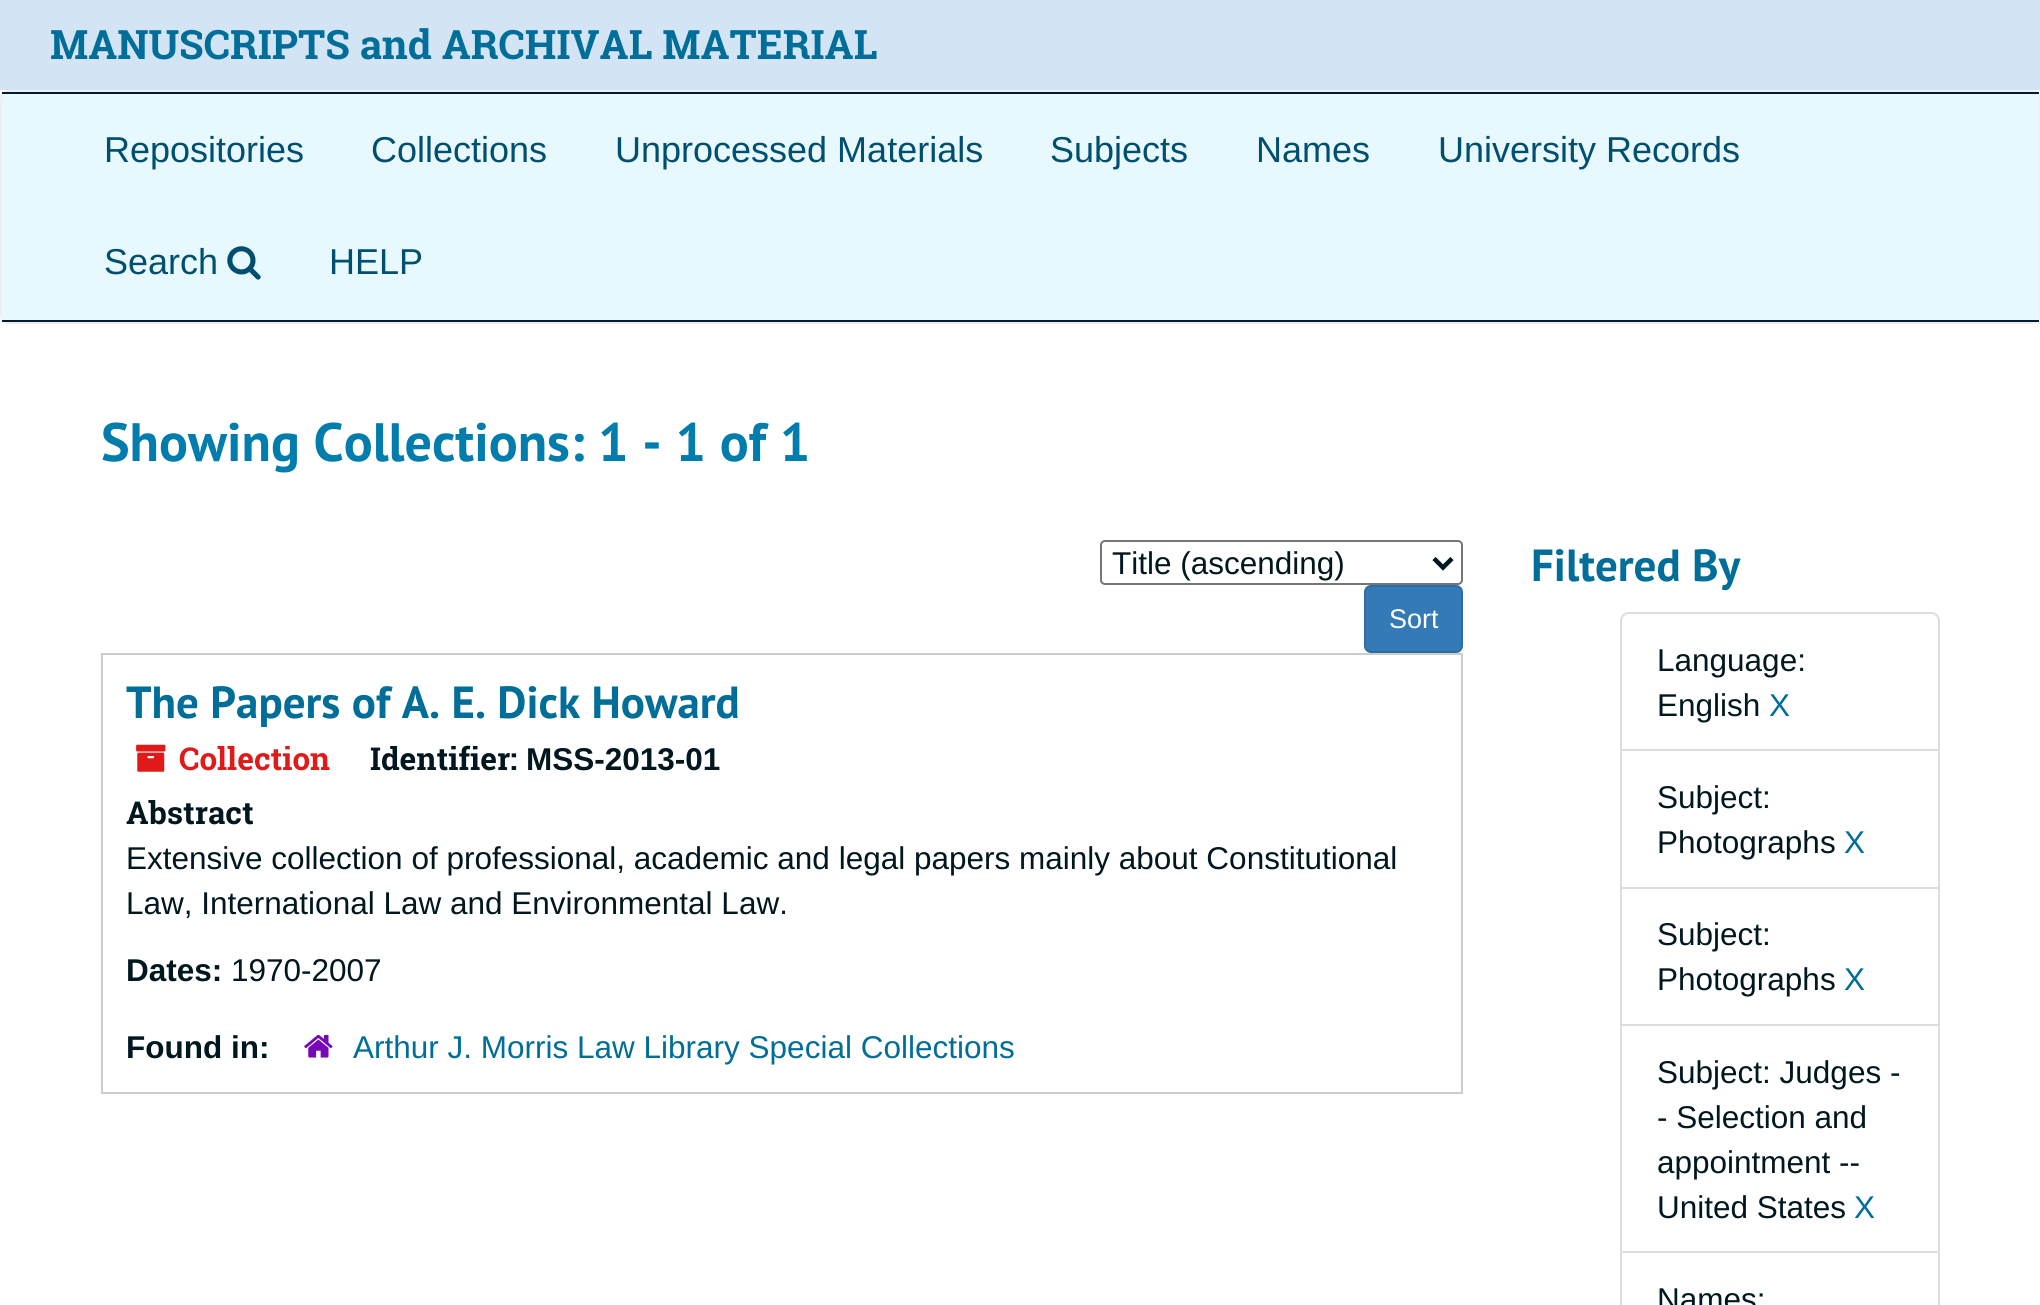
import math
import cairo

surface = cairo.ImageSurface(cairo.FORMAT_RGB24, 2040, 1305)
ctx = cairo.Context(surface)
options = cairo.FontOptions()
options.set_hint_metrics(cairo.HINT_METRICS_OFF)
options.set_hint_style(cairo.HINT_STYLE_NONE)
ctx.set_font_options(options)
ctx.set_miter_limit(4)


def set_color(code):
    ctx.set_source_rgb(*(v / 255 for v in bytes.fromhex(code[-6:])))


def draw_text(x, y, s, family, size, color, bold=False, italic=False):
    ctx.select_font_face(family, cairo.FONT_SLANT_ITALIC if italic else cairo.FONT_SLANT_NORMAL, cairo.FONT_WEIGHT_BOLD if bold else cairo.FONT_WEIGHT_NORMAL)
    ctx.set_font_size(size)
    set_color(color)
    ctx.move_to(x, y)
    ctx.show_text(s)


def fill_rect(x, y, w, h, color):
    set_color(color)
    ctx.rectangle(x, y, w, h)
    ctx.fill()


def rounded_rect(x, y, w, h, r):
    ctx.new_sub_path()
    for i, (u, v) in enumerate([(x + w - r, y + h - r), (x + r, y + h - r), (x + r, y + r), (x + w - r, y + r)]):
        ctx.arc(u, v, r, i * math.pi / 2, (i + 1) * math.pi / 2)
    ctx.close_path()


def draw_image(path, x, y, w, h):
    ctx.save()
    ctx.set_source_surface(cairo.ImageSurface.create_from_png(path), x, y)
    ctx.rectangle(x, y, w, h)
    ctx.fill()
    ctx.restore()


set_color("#ffffff")
ctx.paint()
fill_rect(0, 0, 2040, 90, "#d3e5f5")
draw_text(50, 59, "MANUSCRIPTS and ARCHIVAL MATERIAL", "Roboto Slab", 40.5, "#006e99", bold=True)
rounded_rect(1, 91, 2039, 232, 8)
set_color("#eeeeee")
ctx.stroke()
fill_rect(2, 94, 2037, 226, "#e8f8ff")
fill_rect(2, 92, 2037, 2, "#041c2f")
fill_rect(2, 320, 2037, 2, "#041c2f")
draw_text(104, 162, "Repositories", "Liberation Sans", 36, "#004f6f")
draw_text(371, 162, "Collections", "Liberation Sans", 36, "#004f6f")
draw_text(615, 162, "Unprocessed Materials", "Liberation Sans", 36, "#004f6f")
draw_text(1050, 162, "Subjects", "Liberation Sans", 36, "#004f6f")
draw_text(1256, 162, "Names", "Liberation Sans", 36, "#004f6f")
draw_text(1438, 162, "University Records", "Liberation Sans", 36, "#004f6f")
draw_text(104, 274, "Search", "Liberation Sans", 36, "#004f6f")
draw_image("assets/img1.png", 227, 246, 34, 34)
draw_text(329, 274, "HELP", "Liberation Sans", 36, "#004f6f")
draw_text(101, 461, "Showing Collections: 1 - 1 of 1", "PT Sans", 54, "#007cad", bold=True)
rounded_rect(1101, 541, 361, 43, 4)
set_color("#767676")
ctx.stroke()
ctx.new_path()
ctx.move_to(1434, 558.5)
ctx.line_to(1443, 567.5)
ctx.line_to(1452, 558.5)
set_color("#00171f")
ctx.set_line_width(4.5)
ctx.stroke()
draw_text(1112, 574, "Title (ascending)", "Liberation Sans", 31.5, "#00171f")
set_color("#337ab7")
rounded_rect(1365, 586, 97, 66, 6)
ctx.fill_preserve()
set_color("#2e6da4")
ctx.set_line_width(2)
ctx.stroke()
draw_text(1389, 628, "Sort", "Liberation Sans", 27, "#ffffff")
ctx.rectangle(102, 654, 1360, 439)
set_color("#cccccc")
ctx.stroke()
draw_text(126, 718, "The Papers of A. E. Dick Howard", "PT Sans", 45, "#006e99", bold=True)
draw_image("assets/img2.png", 136, 744, 30, 28)
draw_text(179, 770, "Collection", "Roboto Slab", 31.5, "#e01919", bold=True)
draw_text(370, 770, "Identifier:", "Roboto Slab", 31.5, "#00171f", bold=True)
draw_text(526, 770, "MSS-2013-01", "Liberation Sans", 31.5, "#00171f", bold=True)
draw_text(126, 824, "Abstract", "Roboto Slab", 31.5, "#00171f", bold=True)
draw_text(126, 869, "Extensive collection of professional, academic and legal papers mainly about Constitutional", "Liberation Sans", 31.5, "#00171f")
draw_text(126, 914, "Law, International Law and Environmental Law.", "Liberation Sans", 31.5, "#00171f")
draw_text(126, 981, "Dates:", "Liberation Sans", 31.5, "#00171f", bold=True)
draw_text(231, 981, "1970-2007", "Liberation Sans", 31.5, "#00171f")
draw_text(126, 1058, "Found in:", "Liberation Sans", 31.5, "#00171f", bold=True)
draw_image("assets/img3.png", 304, 1035, 29, 23)
draw_text(353, 1058, "Arthur J. Morris Law Library Special Collections", "Liberation Sans", 31.5, "#006e99")
draw_text(1531, 581, "Filtered By", "PT Sans", 45, "#006e99", bold=True)
ctx.new_path()
ctx.move_to(1629, 613)
ctx.line_to(1931, 613)
ctx.curve_to(1935.5, 613, 1939, 616.5, 1939, 621)
ctx.line_to(1939, 751)
ctx.line_to(1621, 751)
ctx.line_to(1621, 621)
ctx.curve_to(1621, 616.5, 1624.5, 613, 1629, 613)
ctx.close_path()
set_color("#dddddd")
ctx.stroke()
draw_text(1657, 671, "Language:", "Liberation Sans", 31.5, "#00171f")
draw_text(1657, 716, "English", "Liberation Sans", 31.5, "#00171f")
draw_text(1769, 716, "X", "Liberation Sans", 31.5, "#006e99")
fill_rect(1622, 751, 316, 1, "#ffffff")
ctx.rectangle(1621, 750, 318, 138)
set_color("#dddddd")
ctx.stroke()
draw_text(1657, 808, "Subject:", "Liberation Sans", 31.5, "#00171f")
draw_text(1657, 853, "Photographs", "Liberation Sans", 31.5, "#00171f")
draw_text(1844, 853, "X", "Liberation Sans", 31.5, "#006e99")
ctx.rectangle(1621, 888, 318, 137)
set_color("#dddddd")
ctx.stroke()
draw_text(1657, 945, "Subject:", "Liberation Sans", 31.5, "#00171f")
draw_text(1657, 990, "Photographs", "Liberation Sans", 31.5, "#00171f")
draw_text(1844, 990, "X", "Liberation Sans", 31.5, "#006e99")
ctx.rectangle(1621, 1025, 318, 227)
set_color("#dddddd")
ctx.stroke()
draw_text(1657, 1083, "Subject: Judges -", "Liberation Sans", 31.5, "#00171f")
draw_text(1657, 1128, "- Selection and", "Liberation Sans", 31.5, "#00171f")
draw_text(1657, 1173, "appointment --", "Liberation Sans", 31.5, "#00171f")
draw_text(1657, 1218, "United States", "Liberation Sans", 31.5, "#00171f")
draw_text(1854, 1218, "X", "Liberation Sans", 31.5, "#006e99")
ctx.rectangle(1621, 1252, 318, 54)
set_color("#dddddd")
ctx.stroke()
draw_text(1657, 1310, "Names:", "Liberation Sans", 31.5, "#00171f")
surface.write_to_png("output.png")
